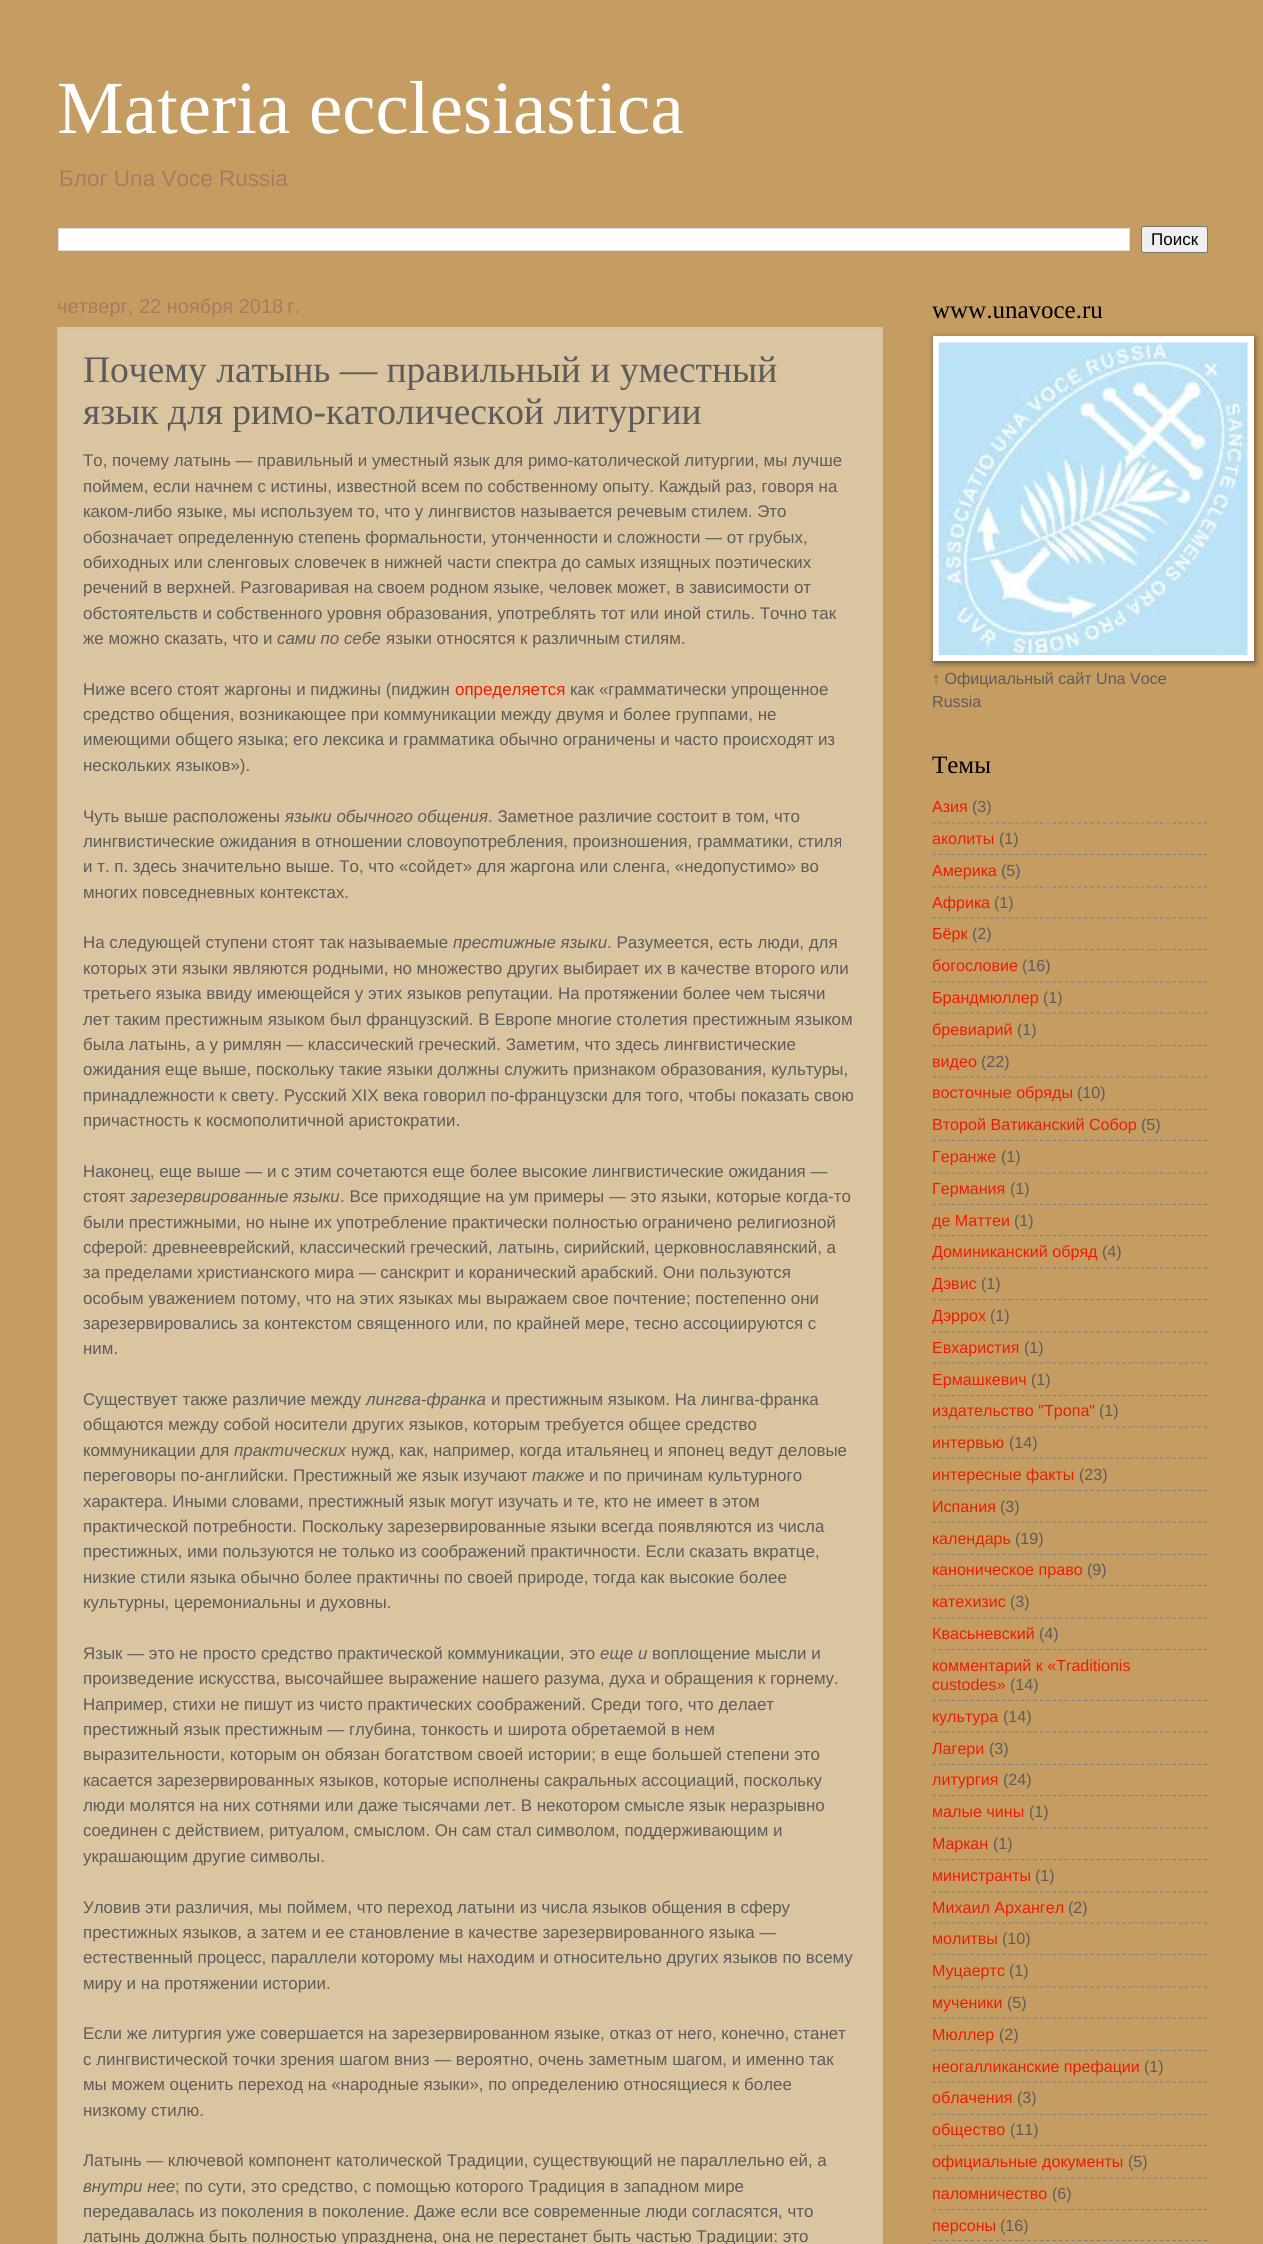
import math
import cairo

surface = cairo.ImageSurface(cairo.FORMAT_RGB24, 1263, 2244)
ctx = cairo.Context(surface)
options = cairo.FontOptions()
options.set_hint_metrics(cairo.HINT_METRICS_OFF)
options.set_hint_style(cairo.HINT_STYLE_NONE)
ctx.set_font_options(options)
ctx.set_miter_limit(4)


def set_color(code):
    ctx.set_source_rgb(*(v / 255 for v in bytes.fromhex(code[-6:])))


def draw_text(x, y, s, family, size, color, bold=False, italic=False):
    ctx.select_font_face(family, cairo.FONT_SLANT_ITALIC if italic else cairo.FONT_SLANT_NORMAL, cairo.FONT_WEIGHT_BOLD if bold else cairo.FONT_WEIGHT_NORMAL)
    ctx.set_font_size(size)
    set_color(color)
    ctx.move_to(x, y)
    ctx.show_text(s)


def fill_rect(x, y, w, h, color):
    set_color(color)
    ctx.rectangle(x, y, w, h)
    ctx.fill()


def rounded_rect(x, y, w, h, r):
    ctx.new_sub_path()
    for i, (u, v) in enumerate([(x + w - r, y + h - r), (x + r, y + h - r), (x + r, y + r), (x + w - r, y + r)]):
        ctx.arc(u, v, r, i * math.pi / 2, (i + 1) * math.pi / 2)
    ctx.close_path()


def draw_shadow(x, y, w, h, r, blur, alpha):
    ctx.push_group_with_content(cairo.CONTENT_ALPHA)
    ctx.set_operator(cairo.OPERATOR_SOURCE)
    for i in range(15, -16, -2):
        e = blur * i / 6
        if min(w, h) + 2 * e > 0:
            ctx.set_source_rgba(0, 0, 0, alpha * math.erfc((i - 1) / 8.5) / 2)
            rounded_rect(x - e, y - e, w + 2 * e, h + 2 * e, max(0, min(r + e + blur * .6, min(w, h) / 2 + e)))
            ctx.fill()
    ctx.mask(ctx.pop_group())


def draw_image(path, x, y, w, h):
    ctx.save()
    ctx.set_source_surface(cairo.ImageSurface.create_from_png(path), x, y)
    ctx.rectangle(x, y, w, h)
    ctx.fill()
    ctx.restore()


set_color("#c59d63")
ctx.paint()
draw_text(57, 133, "Materia ecclesiastica", "Liberation Serif", 75, "#ffffff")
draw_text(59, 186, "Блог Una Voce Russia", "Liberation Sans", 22.5, "#a77b61")
set_color("#ffffff")
ctx.rectangle(58.5, 228.5, 1071, 22)
ctx.fill_preserve()
set_color("#dddddd")
ctx.set_line_width(1)
ctx.stroke()
set_color("#efefef")
rounded_rect(1141.5, 226.5, 66, 26, 2)
ctx.fill_preserve()
set_color("#767676")
ctx.stroke()
draw_text(1151, 245, "Поиск", "Liberation Sans", 17, "#000000")
draw_text(57, 313, "четверг, 22 ноября 2018 г.", "Liberation Sans", 20, "#a77b61")
fill_rect(57, 327, 826, 1917, "#dbc5a1")
ctx.new_path()
ctx.move_to(57.5, 328)
ctx.line_to(882.5, 328)
set_color("#d0baa1")
ctx.set_line_width(1.2)
ctx.set_dash([1.25, 1.25])
ctx.stroke()
ctx.new_path()
ctx.move_to(882, 327.5)
ctx.line_to(882, 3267.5)
ctx.stroke()
ctx.new_path()
ctx.move_to(58, 327.5)
ctx.line_to(58, 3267.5)
ctx.stroke()
draw_text(83, 382, "Почему латынь — правильный и уместный", "Liberation Serif", 37.5, "#5c5c5c")
draw_text(83, 424, "язык для римо-католической литургии", "Liberation Serif", 37.5, "#5c5c5c")
draw_text(83, 466, "То, почему латынь — правильный и уместный язык для римо-католической литургии, мы лучше", "Liberation Sans", 16.9, "#5c5c5c")
draw_text(83, 492, "поймем, если начнем с истины, известной всем по собственному опыту. Каждый раз, говоря на", "Liberation Sans", 16.9, "#5c5c5c")
draw_text(83, 517, "каком-либо языке, мы используем то, что у лингвистов называется речевым стилем. Это", "Liberation Sans", 16.9, "#5c5c5c")
draw_text(83, 543, "обозначает определенную степень формальности, утонченности и сложности — от грубых,", "Liberation Sans", 16.9, "#5c5c5c")
draw_text(83, 568, "обиходных или сленговых словечек в нижней части спектра до самых изящных поэтических", "Liberation Sans", 16.9, "#5c5c5c")
draw_text(83, 593, "речений в верхней. Разговаривая на своем родном языке, человек может, в зависимости от", "Liberation Sans", 16.9, "#5c5c5c")
draw_text(83, 619, "обстоятельств и собственного уровня образования, употреблять тот или иной стиль. Точно так", "Liberation Sans", 16.9, "#5c5c5c")
draw_text(83, 644, "же можно сказать, что и", "Liberation Sans", 16.9, "#5c5c5c")
draw_text(277, 644, "сами по себе", "Liberation Sans", 16.9, "#5c5c5c", italic=True)
draw_text(386, 644, "языки относятся к различным стилям.", "Liberation Sans", 16.9, "#5c5c5c")
draw_text(83, 695, "Ниже всего стоят жаргоны и пиджины (пиджин", "Liberation Sans", 16.9, "#5c5c5c")
draw_text(455, 695, "определяется", "Liberation Sans", 16.9, "#ef1d00")
draw_text(570, 695, "как «грамматически упрощенное", "Liberation Sans", 16.9, "#5c5c5c")
draw_text(83, 720, "средство общения, возникающее при коммуникации между двумя и более группами, не", "Liberation Sans", 16.9, "#5c5c5c")
draw_text(83, 745, "имеющими общего языка; его лексика и грамматика обычно ограничены и часто происходят из", "Liberation Sans", 16.9, "#5c5c5c")
draw_text(83, 771, "нескольких языков»).", "Liberation Sans", 16.9, "#5c5c5c")
draw_text(83, 822, "Чуть выше расположены", "Liberation Sans", 16.9, "#5c5c5c")
draw_text(285, 822, "языки обычного общения", "Liberation Sans", 16.9, "#5c5c5c", italic=True)
draw_text(488, 822, ". Заметное различие состоит в том, что", "Liberation Sans", 16.9, "#5c5c5c")
draw_text(83, 847, "лингвистические ожидания в отношении словоупотребления, произношения, грамматики, стиля", "Liberation Sans", 16.9, "#5c5c5c")
draw_text(83, 872, "и т. п. здесь значительно выше. То, что «сойдет» для жаргона или сленга, «недопустимо» во", "Liberation Sans", 16.9, "#5c5c5c")
draw_text(83, 898, "многих повседневных контекстах.", "Liberation Sans", 16.9, "#5c5c5c")
draw_text(83, 948, "На следующей ступени стоят так называемые", "Liberation Sans", 16.9, "#5c5c5c")
draw_text(453, 948, "престижные языки", "Liberation Sans", 16.9, "#5c5c5c", italic=True)
draw_text(607, 948, ". Разумеется, есть люди, для", "Liberation Sans", 16.9, "#5c5c5c")
draw_text(83, 974, "которых эти языки являются родными, но множество других выбирает их в качестве второго или", "Liberation Sans", 16.9, "#5c5c5c")
draw_text(83, 999, "третьего языка ввиду имеющейся у этих языков репутации. На протяжении более чем тысячи", "Liberation Sans", 16.9, "#5c5c5c")
draw_text(83, 1025, "лет таким престижным языком был французский. В Европе многие столетия престижным языком", "Liberation Sans", 16.9, "#5c5c5c")
draw_text(83, 1050, "была латынь, а у римлян — классический греческий. Заметим, что здесь лингвистические", "Liberation Sans", 16.9, "#5c5c5c")
draw_text(83, 1075, "ожидания еще выше, поскольку такие языки должны служить признаком образования, культуры,", "Liberation Sans", 16.9, "#5c5c5c")
draw_text(83, 1101, "принадлежности к свету. Русский XIX века говорил по-французски для того, чтобы показать свою", "Liberation Sans", 16.9, "#5c5c5c")
draw_text(83, 1126, "причастность к космополитичной аристократии.", "Liberation Sans", 16.9, "#5c5c5c")
draw_text(83, 1177, "Наконец, еще выше — и с этим сочетаются еще более высокие лингвистические ожидания —", "Liberation Sans", 16.9, "#5c5c5c")
draw_text(83, 1202, "стоят", "Liberation Sans", 16.9, "#5c5c5c")
draw_text(130, 1202, "зарезервированные языки", "Liberation Sans", 16.9, "#5c5c5c", italic=True)
draw_text(340, 1202, ". Все приходящие на ум примеры — это языки, которые когда-то", "Liberation Sans", 16.9, "#5c5c5c")
draw_text(83, 1228, "были престижными, но ныне их употребление практически полностью ограничено религиозной", "Liberation Sans", 16.9, "#5c5c5c")
draw_text(83, 1253, "сферой: древнееврейский, классический греческий, латынь, сирийский, церковнославянский, а", "Liberation Sans", 16.9, "#5c5c5c")
draw_text(83, 1278, "за пределами христианского мира — санскрит и коранический арабский. Они пользуются", "Liberation Sans", 16.9, "#5c5c5c")
draw_text(83, 1304, "особым уважением потому, что на этих языках мы выражаем свое почтение; постепенно они", "Liberation Sans", 16.9, "#5c5c5c")
draw_text(83, 1329, "зарезервировались за контекстом священного или, по крайней мере, тесно ассоциируются с", "Liberation Sans", 16.9, "#5c5c5c")
draw_text(83, 1354, "ним.", "Liberation Sans", 16.9, "#5c5c5c")
draw_text(83, 1405, "Существует также различие между", "Liberation Sans", 16.9, "#5c5c5c")
draw_text(366, 1405, "лингва-франка", "Liberation Sans", 16.9, "#5c5c5c", italic=True)
draw_text(491, 1405, "и престижным языком. На лингва-франка", "Liberation Sans", 16.9, "#5c5c5c")
draw_text(83, 1430, "общаются между собой носители других языков, которым требуется общее средство", "Liberation Sans", 16.9, "#5c5c5c")
draw_text(83, 1456, "коммуникации для", "Liberation Sans", 16.9, "#5c5c5c")
draw_text(234, 1456, "практических", "Liberation Sans", 16.9, "#5c5c5c", italic=True)
draw_text(351, 1456, "нужд, как, например, когда итальянец и японец ведут деловые", "Liberation Sans", 16.9, "#5c5c5c")
draw_text(83, 1481, "переговоры по-английски. Престижный же язык изучают", "Liberation Sans", 16.9, "#5c5c5c")
draw_text(532, 1481, "также", "Liberation Sans", 16.9, "#5c5c5c", italic=True)
draw_text(589, 1481, "и по причинам культурного", "Liberation Sans", 16.9, "#5c5c5c")
draw_text(83, 1507, "характера. Иными словами, престижный язык могут изучать и те, кто не имеет в этом", "Liberation Sans", 16.9, "#5c5c5c")
draw_text(83, 1532, "практической потребности. Поскольку зарезервированные языки всегда появляются из числа", "Liberation Sans", 16.9, "#5c5c5c")
draw_text(83, 1557, "престижных, ими пользуются не только из соображений практичности. Если сказать вкратце,", "Liberation Sans", 16.9, "#5c5c5c")
draw_text(83, 1583, "низкие стили языка обычно более практичны по своей природе, тогда как высокие более", "Liberation Sans", 16.9, "#5c5c5c")
draw_text(83, 1608, "культурны, церемониальны и духовны.", "Liberation Sans", 16.9, "#5c5c5c")
draw_text(83, 1659, "Язык — это не просто средство практической коммуникации, это", "Liberation Sans", 16.9, "#5c5c5c")
draw_text(600, 1659, "еще и", "Liberation Sans", 16.9, "#5c5c5c", italic=True)
draw_text(652, 1659, "воплощение мысли и", "Liberation Sans", 16.9, "#5c5c5c")
draw_text(83, 1684, "произведение искусства, высочайшее выражение нашего разума, духа и обращения к горнему.", "Liberation Sans", 16.9, "#5c5c5c")
draw_text(83, 1710, "Например, стихи не пишут из чисто практических соображений. Среди того, что делает", "Liberation Sans", 16.9, "#5c5c5c")
draw_text(83, 1735, "престижный язык престижным — глубина, тонкость и широта обретаемой в нем", "Liberation Sans", 16.9, "#5c5c5c")
draw_text(83, 1760, "выразительности, которым он обязан богатством своей истории; в еще большей степени это", "Liberation Sans", 16.9, "#5c5c5c")
draw_text(83, 1786, "касается зарезервированных языков, которые исполнены сакральных ассоциаций, поскольку", "Liberation Sans", 16.9, "#5c5c5c")
draw_text(83, 1811, "люди молятся на них сотнями или даже тысячами лет. В некотором смысле язык неразрывно", "Liberation Sans", 16.9, "#5c5c5c")
draw_text(83, 1836, "соединен с действием, ритуалом, смыслом. Он сам стал символом, поддерживающим и", "Liberation Sans", 16.9, "#5c5c5c")
draw_text(83, 1862, "украшающим другие символы.", "Liberation Sans", 16.9, "#5c5c5c")
draw_text(83, 1913, "Уловив эти различия, мы поймем, что переход латыни из числа языков общения в сферу", "Liberation Sans", 16.9, "#5c5c5c")
draw_text(83, 1938, "престижных языков, а затем и ее становление в качестве зарезервированного языка —", "Liberation Sans", 16.9, "#5c5c5c")
draw_text(83, 1963, "естественный процесс, параллели которому мы находим и относительно других языков по всему", "Liberation Sans", 16.9, "#5c5c5c")
draw_text(83, 1989, "миру и на протяжении истории.", "Liberation Sans", 16.9, "#5c5c5c")
draw_text(83, 2039, "Если же литургия уже совершается на зарезервированном языке, отказ от него, конечно, станет", "Liberation Sans", 16.9, "#5c5c5c")
draw_text(83, 2065, "с лингвистической точки зрения шагом вниз — вероятно, очень заметным шагом, и именно так", "Liberation Sans", 16.9, "#5c5c5c")
draw_text(83, 2090, "мы можем оценить переход на «народные языки», по определению относящиеся к более", "Liberation Sans", 16.9, "#5c5c5c")
draw_text(83, 2116, "низкому стилю.", "Liberation Sans", 16.9, "#5c5c5c")
draw_text(83, 2166, "Латынь — ключевой компонент католической Традиции, существующий не параллельно ей, а", "Liberation Sans", 16.9, "#5c5c5c")
draw_text(83, 2192, "внутри нее", "Liberation Sans", 16.9, "#5c5c5c", italic=True)
draw_text(175, 2192, "; по сути, это средство, с помощью которого Традиция в западном мире", "Liberation Sans", 16.9, "#5c5c5c")
draw_text(83, 2217, "передавалась из поколения в поколение. Даже если все современные люди согласятся, что", "Liberation Sans", 16.9, "#5c5c5c")
draw_text(83, 2242, "латынь должна быть полностью упразднена, она не перестанет быть частью Традиции: это", "Liberation Sans", 16.9, "#5c5c5c")
draw_text(932, 318, "www.unavoce.ru", "Liberation Serif", 25, "#000000")
set_color("#000000")
draw_shadow(934, 338, 321, 325, 0, 3, 0.5)
fill_rect(933, 336, 321, 325, "#ffffff")
draw_image("assets/img1.png", 938, 342, 310, 313)
draw_text(932, 684, "↑ Официальный сайт Una Voce", "Liberation Sans", 16.1, "#5c5c5c")
draw_text(932, 707, "Russia", "Liberation Sans", 16.1, "#5c5c5c")
draw_text(932, 773, "Темы", "Liberation Serif", 25, "#000000")
draw_text(932, 812, "Азия", "Liberation Sans", 16.1, "#ef1d00")
draw_text(972, 812, "(3)", "Liberation Sans", 16.1, "#5c5c5c")
ctx.new_path()
ctx.move_to(932.5, 823)
ctx.line_to(1207.5, 823)
set_color("#848484")
ctx.set_dash([3.75, 2.56])
ctx.stroke()
draw_text(932, 844, "аколиты", "Liberation Sans", 16.1, "#ef1d00")
draw_text(999, 844, "(1)", "Liberation Sans", 16.1, "#5c5c5c")
ctx.new_path()
ctx.move_to(932.5, 854.5)
ctx.line_to(1207.5, 854.5)
set_color("#848484")
ctx.stroke()
draw_text(932, 876, "Америка", "Liberation Sans", 16.1, "#ef1d00")
draw_text(1001, 876, "(5)", "Liberation Sans", 16.1, "#5c5c5c")
ctx.new_path()
ctx.move_to(932.5, 887)
ctx.line_to(1207.5, 887)
set_color("#848484")
ctx.stroke()
draw_text(932, 908, "Африка", "Liberation Sans", 16.1, "#ef1d00")
draw_text(994, 908, "(1)", "Liberation Sans", 16.1, "#5c5c5c")
ctx.new_path()
ctx.move_to(932.5, 918)
ctx.line_to(1207.5, 918)
set_color("#848484")
ctx.stroke()
draw_text(932, 939, "Бёрк", "Liberation Sans", 16.1, "#ef1d00")
draw_text(972, 939, "(2)", "Liberation Sans", 16.1, "#5c5c5c")
ctx.new_path()
ctx.move_to(932.5, 949.5)
ctx.line_to(1207.5, 949.5)
set_color("#848484")
ctx.stroke()
draw_text(932, 971, "богословие", "Liberation Sans", 16.1, "#ef1d00")
draw_text(1022, 971, "(16)", "Liberation Sans", 16.1, "#5c5c5c")
ctx.new_path()
ctx.move_to(932.5, 982)
ctx.line_to(1207.5, 982)
set_color("#848484")
ctx.stroke()
draw_text(932, 1003, "Брандмюллер", "Liberation Sans", 16.1, "#ef1d00")
draw_text(1043, 1003, "(1)", "Liberation Sans", 16.1, "#5c5c5c")
ctx.new_path()
ctx.move_to(932.5, 1013)
ctx.line_to(1207.5, 1013)
set_color("#848484")
ctx.stroke()
draw_text(932, 1035, "бревиарий", "Liberation Sans", 16.1, "#ef1d00")
draw_text(1017, 1035, "(1)", "Liberation Sans", 16.1, "#5c5c5c")
ctx.new_path()
ctx.move_to(932.5, 1045.5)
ctx.line_to(1207.5, 1045.5)
set_color("#848484")
ctx.stroke()
draw_text(932, 1067, "видео", "Liberation Sans", 16.1, "#ef1d00")
draw_text(981, 1067, "(22)", "Liberation Sans", 16.1, "#5c5c5c")
ctx.new_path()
ctx.move_to(932.5, 1077)
ctx.line_to(1207.5, 1077)
set_color("#848484")
ctx.stroke()
draw_text(932, 1098, "восточные обряды", "Liberation Sans", 16.1, "#ef1d00")
draw_text(1077, 1098, "(10)", "Liberation Sans", 16.1, "#5c5c5c")
ctx.new_path()
ctx.move_to(932.5, 1109.5)
ctx.line_to(1207.5, 1109.5)
set_color("#848484")
ctx.stroke()
draw_text(932, 1130, "Второй Ватиканский Собор", "Liberation Sans", 16.1, "#ef1d00")
draw_text(1141, 1130, "(5)", "Liberation Sans", 16.1, "#5c5c5c")
ctx.new_path()
ctx.move_to(932.5, 1140.5)
ctx.line_to(1207.5, 1140.5)
set_color("#848484")
ctx.stroke()
draw_text(932, 1162, "Геранже", "Liberation Sans", 16.1, "#ef1d00")
draw_text(1001, 1162, "(1)", "Liberation Sans", 16.1, "#5c5c5c")
ctx.new_path()
ctx.move_to(932.5, 1173)
ctx.line_to(1207.5, 1173)
set_color("#848484")
ctx.stroke()
draw_text(932, 1194, "Германия", "Liberation Sans", 16.1, "#ef1d00")
draw_text(1010, 1194, "(1)", "Liberation Sans", 16.1, "#5c5c5c")
ctx.new_path()
ctx.move_to(932.5, 1204.5)
ctx.line_to(1207.5, 1204.5)
set_color("#848484")
ctx.stroke()
draw_text(932, 1226, "де Маттеи", "Liberation Sans", 16.1, "#ef1d00")
draw_text(1014, 1226, "(1)", "Liberation Sans", 16.1, "#5c5c5c")
ctx.new_path()
ctx.move_to(932.5, 1235.5)
ctx.line_to(1207.5, 1235.5)
set_color("#848484")
ctx.stroke()
draw_text(932, 1257, "Доминиканский обряд", "Liberation Sans", 16.1, "#ef1d00")
draw_text(1102, 1257, "(4)", "Liberation Sans", 16.1, "#5c5c5c")
ctx.new_path()
ctx.move_to(932.5, 1268)
ctx.line_to(1207.5, 1268)
set_color("#848484")
ctx.stroke()
draw_text(932, 1289, "Дэвис", "Liberation Sans", 16.1, "#ef1d00")
draw_text(981, 1289, "(1)", "Liberation Sans", 16.1, "#5c5c5c")
ctx.new_path()
ctx.move_to(932.5, 1299.5)
ctx.line_to(1207.5, 1299.5)
set_color("#848484")
ctx.stroke()
draw_text(932, 1321, "Дэррох", "Liberation Sans", 16.1, "#ef1d00")
draw_text(990, 1321, "(1)", "Liberation Sans", 16.1, "#5c5c5c")
ctx.new_path()
ctx.move_to(932.5, 1332)
ctx.line_to(1207.5, 1332)
set_color("#848484")
ctx.stroke()
draw_text(932, 1353, "Евхаристия", "Liberation Sans", 16.1, "#ef1d00")
draw_text(1024, 1353, "(1)", "Liberation Sans", 16.1, "#5c5c5c")
ctx.new_path()
ctx.move_to(932.5, 1363)
ctx.line_to(1207.5, 1363)
set_color("#848484")
ctx.stroke()
draw_text(932, 1385, "Ермашкевич", "Liberation Sans", 16.1, "#ef1d00")
draw_text(1031, 1385, "(1)", "Liberation Sans", 16.1, "#5c5c5c")
ctx.new_path()
ctx.move_to(932.5, 1395.5)
ctx.line_to(1207.5, 1395.5)
set_color("#848484")
ctx.stroke()
draw_text(932, 1416, "издательство \"Тропа\"", "Liberation Sans", 16.1, "#ef1d00")
draw_text(1099, 1416, "(1)", "Liberation Sans", 16.1, "#5c5c5c")
ctx.new_path()
ctx.move_to(932.5, 1427)
ctx.line_to(1207.5, 1427)
set_color("#848484")
ctx.stroke()
draw_text(932, 1448, "интервью", "Liberation Sans", 16.1, "#ef1d00")
draw_text(1009, 1448, "(14)", "Liberation Sans", 16.1, "#5c5c5c")
ctx.new_path()
ctx.move_to(932.5, 1458)
ctx.line_to(1207.5, 1458)
set_color("#848484")
ctx.stroke()
draw_text(932, 1480, "интересные факты", "Liberation Sans", 16.1, "#ef1d00")
draw_text(1079, 1480, "(23)", "Liberation Sans", 16.1, "#5c5c5c")
ctx.new_path()
ctx.move_to(932.5, 1490.5)
ctx.line_to(1207.5, 1490.5)
set_color("#848484")
ctx.stroke()
draw_text(932, 1512, "Испания", "Liberation Sans", 16.1, "#ef1d00")
draw_text(1000, 1512, "(3)", "Liberation Sans", 16.1, "#5c5c5c")
ctx.new_path()
ctx.move_to(932.5, 1522)
ctx.line_to(1207.5, 1522)
set_color("#848484")
ctx.stroke()
draw_text(932, 1544, "календарь", "Liberation Sans", 16.1, "#ef1d00")
draw_text(1015, 1544, "(19)", "Liberation Sans", 16.1, "#5c5c5c")
ctx.new_path()
ctx.move_to(932.5, 1554.5)
ctx.line_to(1207.5, 1554.5)
set_color("#848484")
ctx.stroke()
draw_text(932, 1575, "каноническое право", "Liberation Sans", 16.1, "#ef1d00")
draw_text(1087, 1575, "(9)", "Liberation Sans", 16.1, "#5c5c5c")
ctx.new_path()
ctx.move_to(932.5, 1585.5)
ctx.line_to(1207.5, 1585.5)
set_color("#848484")
ctx.stroke()
draw_text(932, 1607, "катехизис", "Liberation Sans", 16.1, "#ef1d00")
draw_text(1010, 1607, "(3)", "Liberation Sans", 16.1, "#5c5c5c")
ctx.new_path()
ctx.move_to(932.5, 1618)
ctx.line_to(1207.5, 1618)
set_color("#848484")
ctx.stroke()
draw_text(932, 1639, "Квасьневский", "Liberation Sans", 16.1, "#ef1d00")
draw_text(1039, 1639, "(4)", "Liberation Sans", 16.1, "#5c5c5c")
ctx.new_path()
ctx.move_to(932.5, 1649.5)
ctx.line_to(1207.5, 1649.5)
set_color("#848484")
ctx.stroke()
draw_text(932, 1671, "комментарий к «Traditionis", "Liberation Sans", 16.1, "#ef1d00")
draw_text(932, 1690, "custodes»", "Liberation Sans", 16.1, "#ef1d00")
draw_text(1010, 1690, "(14)", "Liberation Sans", 16.1, "#5c5c5c")
ctx.new_path()
ctx.move_to(932.5, 1700.5)
ctx.line_to(1207.5, 1700.5)
set_color("#848484")
ctx.stroke()
draw_text(932, 1722, "культура", "Liberation Sans", 16.1, "#ef1d00")
draw_text(1003, 1722, "(14)", "Liberation Sans", 16.1, "#5c5c5c")
ctx.new_path()
ctx.move_to(932.5, 1732)
ctx.line_to(1207.5, 1732)
set_color("#848484")
ctx.stroke()
draw_text(932, 1754, "Лагери", "Liberation Sans", 16.1, "#ef1d00")
draw_text(989, 1754, "(3)", "Liberation Sans", 16.1, "#5c5c5c")
ctx.new_path()
ctx.move_to(932.5, 1764.5)
ctx.line_to(1207.5, 1764.5)
set_color("#848484")
ctx.stroke()
draw_text(932, 1785, "литургия", "Liberation Sans", 16.1, "#ef1d00")
draw_text(1003, 1785, "(24)", "Liberation Sans", 16.1, "#5c5c5c")
ctx.new_path()
ctx.move_to(932.5, 1795.5)
ctx.line_to(1207.5, 1795.5)
set_color("#848484")
ctx.stroke()
draw_text(932, 1817, "малые чины", "Liberation Sans", 16.1, "#ef1d00")
draw_text(1029, 1817, "(1)", "Liberation Sans", 16.1, "#5c5c5c")
ctx.new_path()
ctx.move_to(932.5, 1828)
ctx.line_to(1207.5, 1828)
set_color("#848484")
ctx.stroke()
draw_text(932, 1849, "Маркан", "Liberation Sans", 16.1, "#ef1d00")
draw_text(993, 1849, "(1)", "Liberation Sans", 16.1, "#5c5c5c")
ctx.new_path()
ctx.move_to(932.5, 1859.5)
ctx.line_to(1207.5, 1859.5)
set_color("#848484")
ctx.stroke()
draw_text(932, 1881, "министранты", "Liberation Sans", 16.1, "#ef1d00")
draw_text(1035, 1881, "(1)", "Liberation Sans", 16.1, "#5c5c5c")
ctx.new_path()
ctx.move_to(932.5, 1892)
ctx.line_to(1207.5, 1892)
set_color("#848484")
ctx.stroke()
draw_text(932, 1913, "Михаил Архангел", "Liberation Sans", 16.1, "#ef1d00")
draw_text(1068, 1913, "(2)", "Liberation Sans", 16.1, "#5c5c5c")
ctx.new_path()
ctx.move_to(932.5, 1923)
ctx.line_to(1207.5, 1923)
set_color("#848484")
ctx.stroke()
draw_text(932, 1944, "молитвы", "Liberation Sans", 16.1, "#ef1d00")
draw_text(1002, 1944, "(10)", "Liberation Sans", 16.1, "#5c5c5c")
ctx.new_path()
ctx.move_to(932.5, 1954.5)
ctx.line_to(1207.5, 1954.5)
set_color("#848484")
ctx.stroke()
draw_text(932, 1976, "Муцаертс", "Liberation Sans", 16.1, "#ef1d00")
draw_text(1009, 1976, "(1)", "Liberation Sans", 16.1, "#5c5c5c")
ctx.new_path()
ctx.move_to(932.5, 1987)
ctx.line_to(1207.5, 1987)
set_color("#848484")
ctx.stroke()
draw_text(932, 2008, "мученики", "Liberation Sans", 16.1, "#ef1d00")
draw_text(1007, 2008, "(5)", "Liberation Sans", 16.1, "#5c5c5c")
ctx.new_path()
ctx.move_to(932.5, 2018)
ctx.line_to(1207.5, 2018)
set_color("#848484")
ctx.stroke()
draw_text(932, 2040, "Мюллер", "Liberation Sans", 16.1, "#ef1d00")
draw_text(999, 2040, "(2)", "Liberation Sans", 16.1, "#5c5c5c")
ctx.new_path()
ctx.move_to(932.5, 2050.5)
ctx.line_to(1207.5, 2050.5)
set_color("#848484")
ctx.stroke()
draw_text(932, 2072, "неогалликанские префации", "Liberation Sans", 16.1, "#ef1d00")
draw_text(1144, 2072, "(1)", "Liberation Sans", 16.1, "#5c5c5c")
ctx.new_path()
ctx.move_to(932.5, 2082)
ctx.line_to(1207.5, 2082)
set_color("#848484")
ctx.stroke()
draw_text(932, 2103, "облачения", "Liberation Sans", 16.1, "#ef1d00")
draw_text(1017, 2103, "(3)", "Liberation Sans", 16.1, "#5c5c5c")
ctx.new_path()
ctx.move_to(932.5, 2114.5)
ctx.line_to(1207.5, 2114.5)
set_color("#848484")
ctx.stroke()
draw_text(932, 2135, "общество", "Liberation Sans", 16.1, "#ef1d00")
draw_text(1010, 2135, "(11)", "Liberation Sans", 16.1, "#5c5c5c")
ctx.new_path()
ctx.move_to(932.5, 2145.5)
ctx.line_to(1207.5, 2145.5)
set_color("#848484")
ctx.stroke()
draw_text(932, 2167, "официальные документы", "Liberation Sans", 16.1, "#ef1d00")
draw_text(1128, 2167, "(5)", "Liberation Sans", 16.1, "#5c5c5c")
ctx.new_path()
ctx.move_to(932.5, 2178)
ctx.line_to(1207.5, 2178)
set_color("#848484")
ctx.stroke()
draw_text(932, 2199, "паломничество", "Liberation Sans", 16.1, "#ef1d00")
draw_text(1052, 2199, "(6)", "Liberation Sans", 16.1, "#5c5c5c")
ctx.new_path()
ctx.move_to(932.5, 2209.5)
ctx.line_to(1207.5, 2209.5)
set_color("#848484")
ctx.stroke()
draw_text(932, 2231, "персоны", "Liberation Sans", 16.1, "#ef1d00")
draw_text(1000, 2231, "(16)", "Liberation Sans", 16.1, "#5c5c5c")
ctx.new_path()
ctx.move_to(932.5, 2240.5)
ctx.line_to(1207.5, 2240.5)
set_color("#848484")
ctx.stroke()
surface.write_to_png("output.png")
